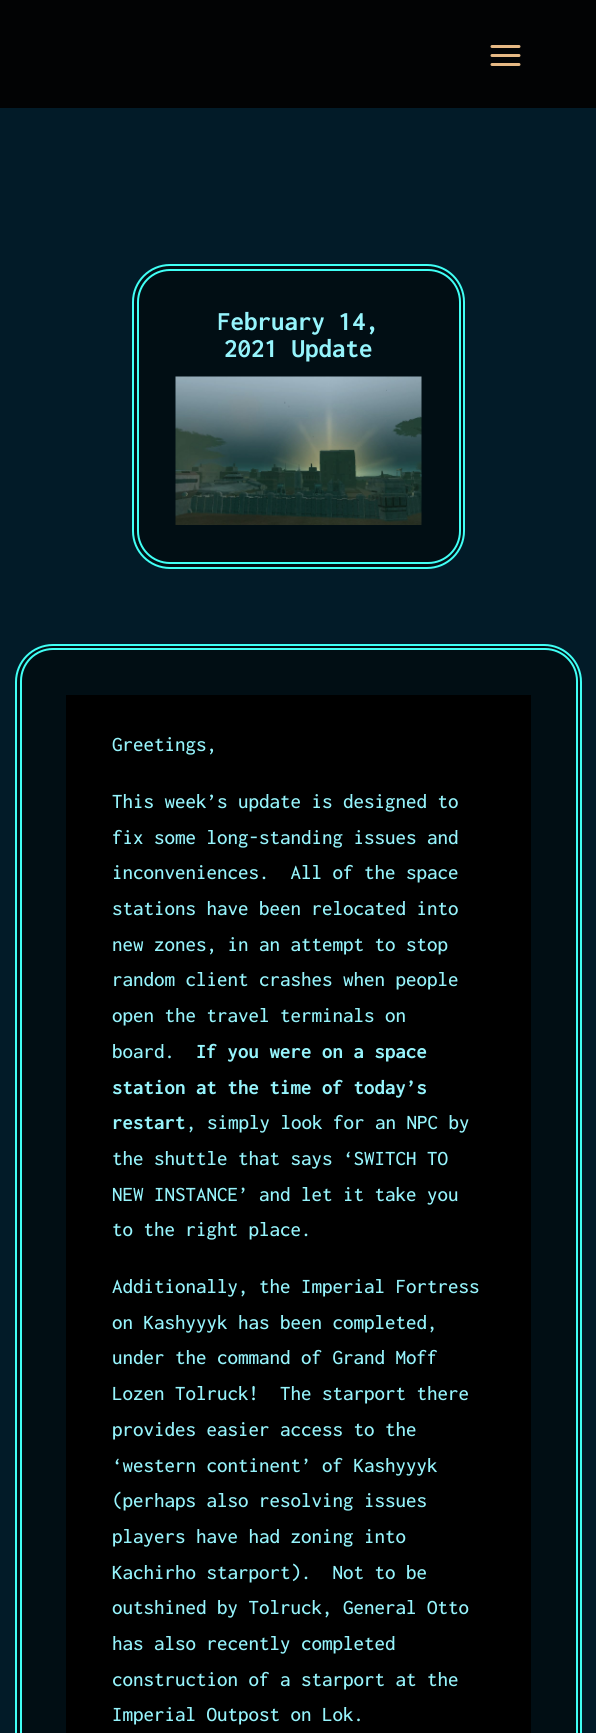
import math
import cairo

surface = cairo.ImageSurface(cairo.FORMAT_RGB24, 596, 1733)
ctx = cairo.Context(surface)
options = cairo.FontOptions()
options.set_hint_metrics(cairo.HINT_METRICS_OFF)
options.set_hint_style(cairo.HINT_STYLE_NONE)
ctx.set_font_options(options)
ctx.set_miter_limit(4)


def set_color(code):
    ctx.set_source_rgb(*(v / 255 for v in bytes.fromhex(code[-6:])))


def draw_text(x, y, s, family, size, color, bold=False, italic=False):
    ctx.select_font_face(family, cairo.FONT_SLANT_ITALIC if italic else cairo.FONT_SLANT_NORMAL, cairo.FONT_WEIGHT_BOLD if bold else cairo.FONT_WEIGHT_NORMAL)
    ctx.set_font_size(size)
    set_color(color)
    ctx.move_to(x, y)
    ctx.show_text(s)


def fill_rect(x, y, w, h, color):
    set_color(color)
    ctx.rectangle(x, y, w, h)
    ctx.fill()


def rounded_rect(x, y, w, h, r):
    ctx.new_sub_path()
    for i, (u, v) in enumerate([(x + w - r, y + h - r), (x + r, y + h - r), (x + r, y + r), (x + w - r, y + r)]):
        ctx.arc(u, v, r, i * math.pi / 2, (i + 1) * math.pi / 2)
    ctx.close_path()


def draw_image(path, x, y, w, h):
    ctx.save()
    ctx.set_source_surface(cairo.ImageSurface.create_from_png(path), x, y)
    ctx.rectangle(x, y, w, h)
    ctx.fill()
    ctx.restore()


set_color("#021b28")
ctx.paint()
fill_rect(0, 0, 596, 108, "#020304")
draw_image("assets/img1.png", 490, 45, 31, 21)
set_color("#010e14")
rounded_rect(133, 265, 331, 303, 37)
ctx.fill_preserve()
set_color("#40fff5")
ctx.stroke()
rounded_rect(138, 270, 322, 293, 32)
ctx.stroke()
draw_text(217, 330, "February 14,", "Inconsolata", 27, "#96f4fc", bold=True)
draw_text(224, 357, "2021 Update", "Inconsolata", 27, "#96f4fc", bold=True)
draw_image("assets/img2.png", 175, 376, 247, 149)
set_color("#010e14")
rounded_rect(16, 645, 565, 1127, 37)
ctx.fill_preserve()
set_color("#40fff5")
ctx.stroke()
rounded_rect(21, 649, 556, 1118, 32)
ctx.stroke()
fill_rect(66, 695, 465, 1038, "#000000")
draw_text(112, 751, "Greetings,", "Inconsolata Medium", 21, "#96f4fc")
draw_text(112, 808, "This week’s update is designed to", "Inconsolata Medium", 21, "#96f4fc")
draw_text(112, 844, "fix some long-standing issues and", "Inconsolata Medium", 21, "#96f4fc")
draw_text(112, 879, "inconveniences.  All of the space", "Inconsolata Medium", 21, "#96f4fc")
draw_text(112, 915, "stations have been relocated into", "Inconsolata Medium", 21, "#96f4fc")
draw_text(112, 951, "new zones, in an attempt to stop", "Inconsolata Medium", 21, "#96f4fc")
draw_text(112, 986, "random client crashes when people", "Inconsolata Medium", 21, "#96f4fc")
draw_text(112, 1022, "open the travel terminals on", "Inconsolata Medium", 21, "#96f4fc")
draw_text(112, 1058, "board.", "Inconsolata Medium", 21, "#96f4fc")
draw_text(196, 1058, "If you were on a space", "Inconsolata", 21, "#96f4fc", bold=True)
draw_text(112, 1094, "station at the time of today’s", "Inconsolata", 21, "#96f4fc", bold=True)
draw_text(112, 1129, "restart", "Inconsolata", 21, "#96f4fc", bold=True)
draw_text(186, 1129, ", simply look for an NPC by", "Inconsolata Medium", 21, "#96f4fc")
draw_text(112, 1165, "the shuttle that says ‘SWITCH TO", "Inconsolata Medium", 21, "#96f4fc")
draw_text(112, 1201, "NEW INSTANCE’ and let it take you", "Inconsolata Medium", 21, "#96f4fc")
draw_text(112, 1236, "to the right place.", "Inconsolata Medium", 21, "#96f4fc")
draw_text(112, 1293, "Additionally, the Imperial Fortress", "Inconsolata Medium", 21, "#96f4fc")
draw_text(112, 1329, "on Kashyyyk has been completed,", "Inconsolata Medium", 21, "#96f4fc")
draw_text(112, 1364, "under the command of Grand Moff", "Inconsolata Medium", 21, "#96f4fc")
draw_text(112, 1400, "Lozen Tolruck!  The starport there", "Inconsolata Medium", 21, "#96f4fc")
draw_text(112, 1436, "provides easier access to the", "Inconsolata Medium", 21, "#96f4fc")
draw_text(112, 1472, "‘western continent’ of Kashyyyk", "Inconsolata Medium", 21, "#96f4fc")
draw_text(112, 1507, "(perhaps also resolving issues", "Inconsolata Medium", 21, "#96f4fc")
draw_text(112, 1543, "players have had zoning into", "Inconsolata Medium", 21, "#96f4fc")
draw_text(112, 1579, "Kachirho starport).  Not to be", "Inconsolata Medium", 21, "#96f4fc")
draw_text(112, 1614, "outshined by Tolruck, General Otto", "Inconsolata Medium", 21, "#96f4fc")
draw_text(112, 1650, "has also recently completed", "Inconsolata Medium", 21, "#96f4fc")
draw_text(112, 1686, "construction of a starport at the", "Inconsolata Medium", 21, "#96f4fc")
draw_text(112, 1721, "Imperial Outpost on Lok.", "Inconsolata Medium", 21, "#96f4fc")
surface.write_to_png("output.png")
